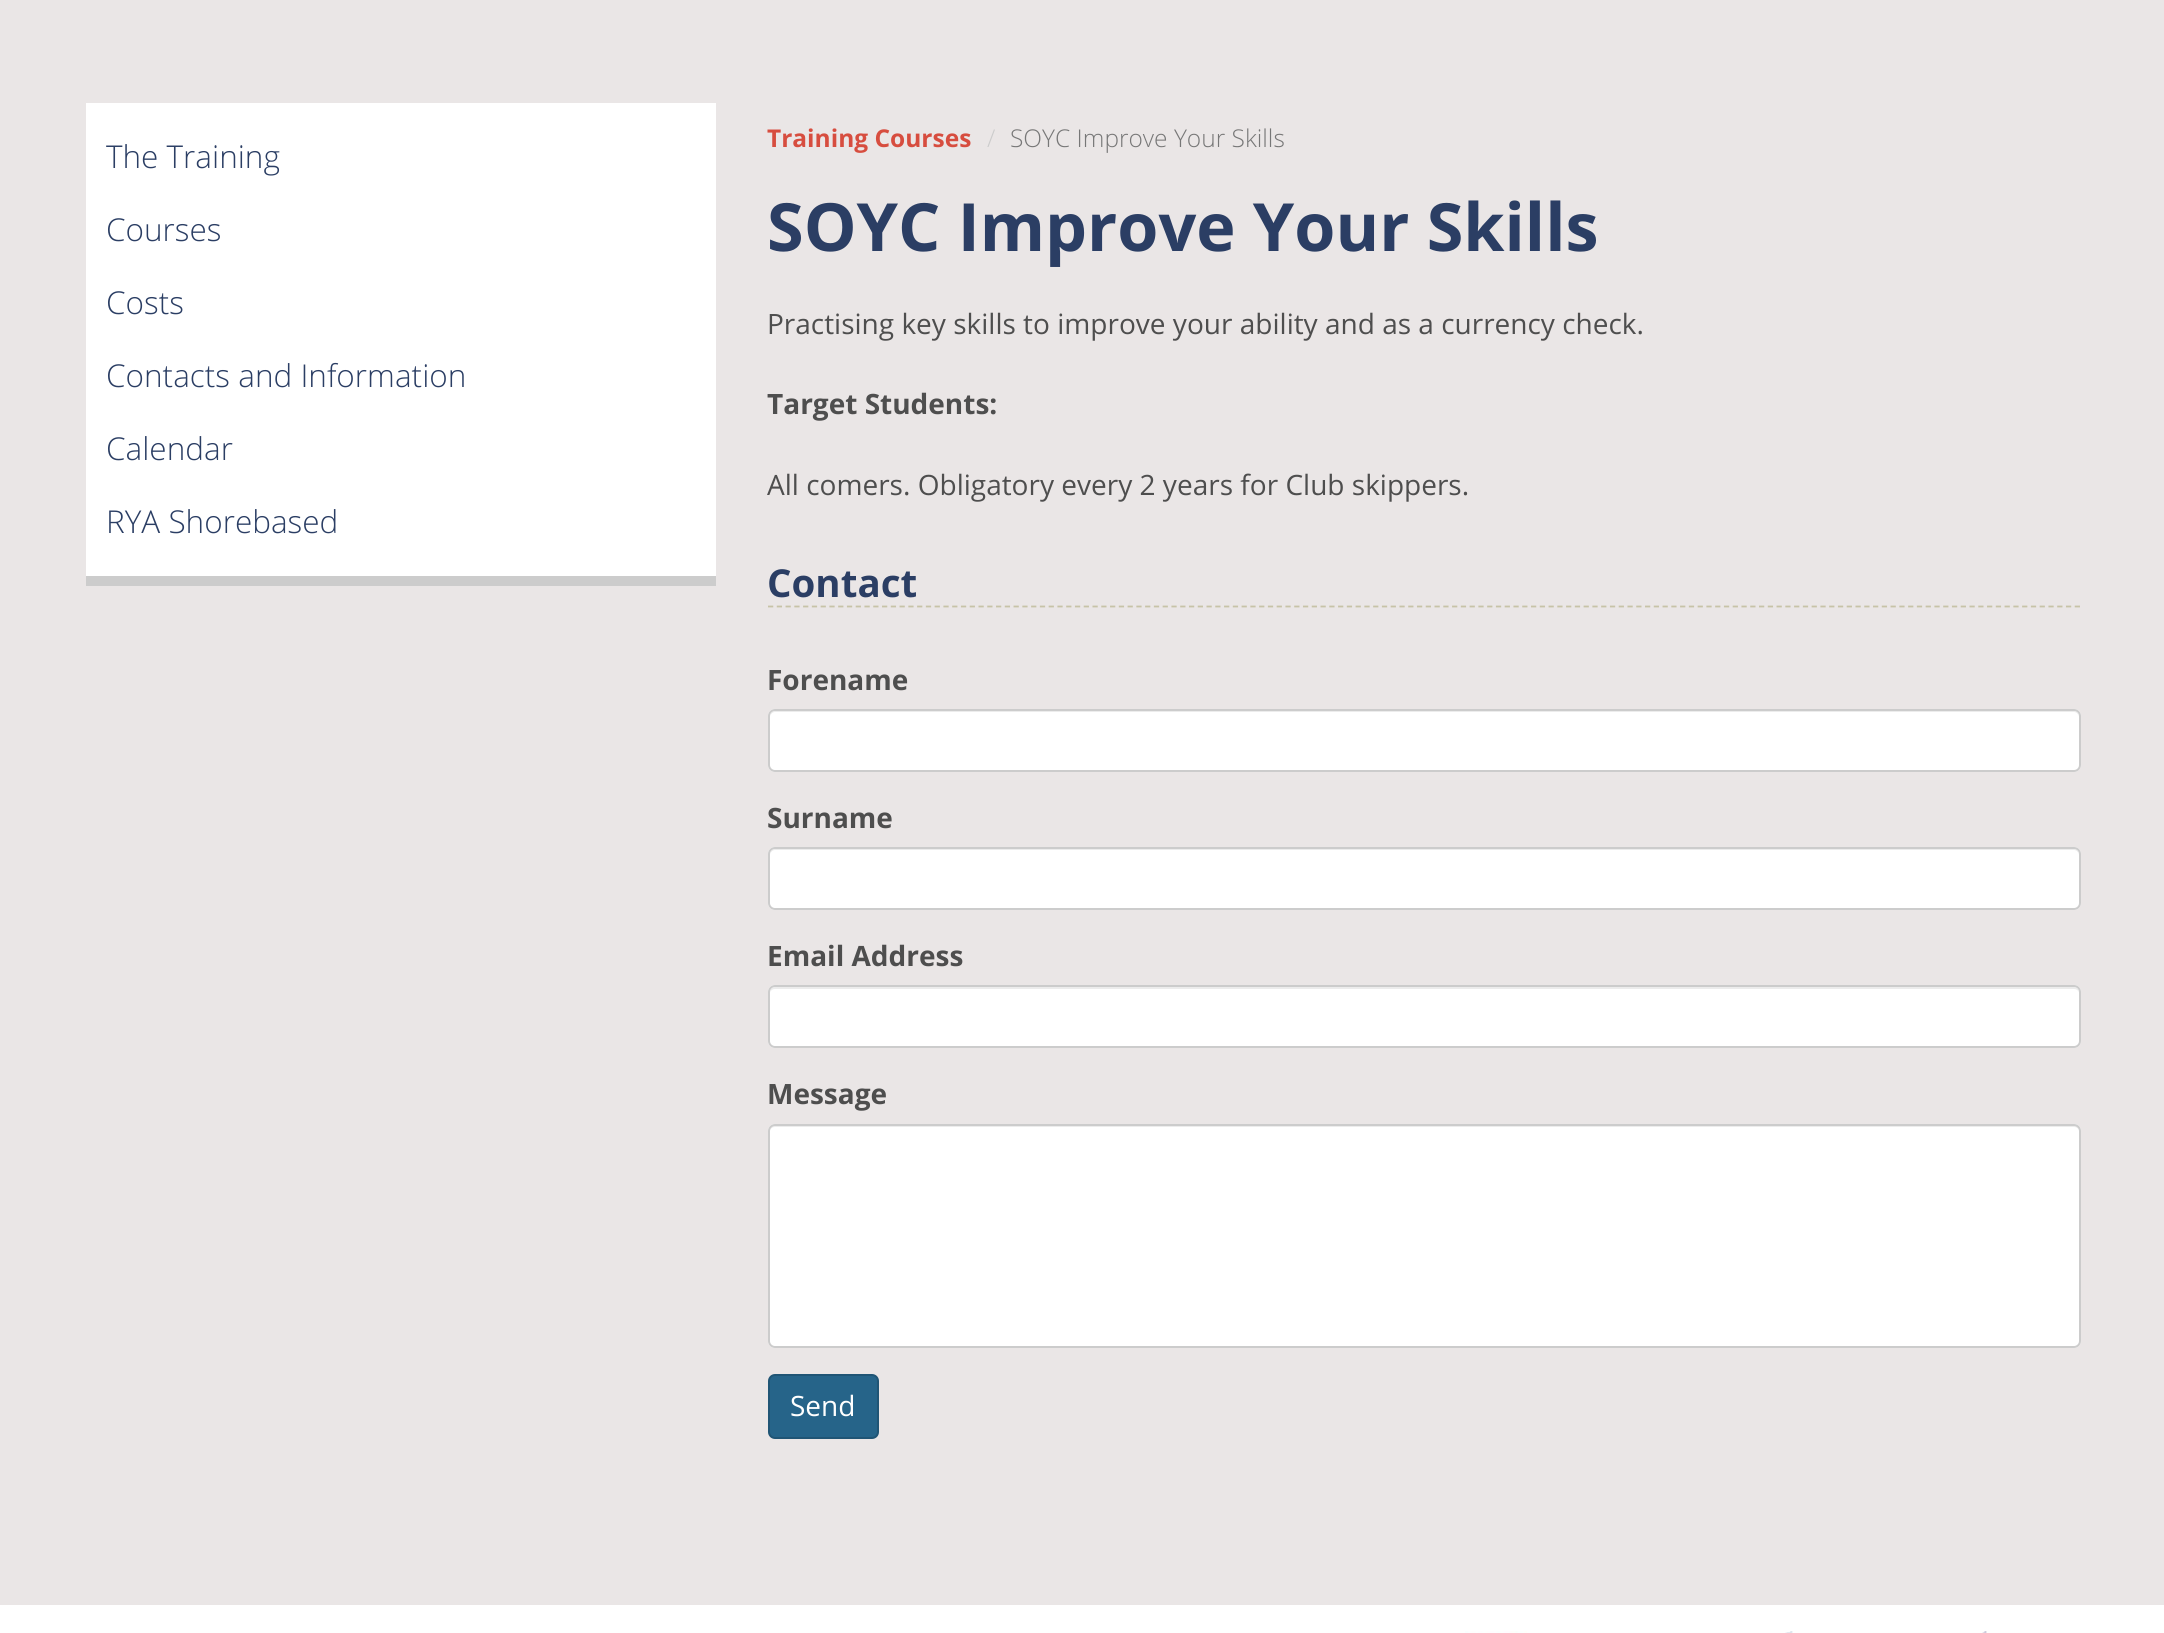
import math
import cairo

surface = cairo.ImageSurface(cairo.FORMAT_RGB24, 2164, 1633)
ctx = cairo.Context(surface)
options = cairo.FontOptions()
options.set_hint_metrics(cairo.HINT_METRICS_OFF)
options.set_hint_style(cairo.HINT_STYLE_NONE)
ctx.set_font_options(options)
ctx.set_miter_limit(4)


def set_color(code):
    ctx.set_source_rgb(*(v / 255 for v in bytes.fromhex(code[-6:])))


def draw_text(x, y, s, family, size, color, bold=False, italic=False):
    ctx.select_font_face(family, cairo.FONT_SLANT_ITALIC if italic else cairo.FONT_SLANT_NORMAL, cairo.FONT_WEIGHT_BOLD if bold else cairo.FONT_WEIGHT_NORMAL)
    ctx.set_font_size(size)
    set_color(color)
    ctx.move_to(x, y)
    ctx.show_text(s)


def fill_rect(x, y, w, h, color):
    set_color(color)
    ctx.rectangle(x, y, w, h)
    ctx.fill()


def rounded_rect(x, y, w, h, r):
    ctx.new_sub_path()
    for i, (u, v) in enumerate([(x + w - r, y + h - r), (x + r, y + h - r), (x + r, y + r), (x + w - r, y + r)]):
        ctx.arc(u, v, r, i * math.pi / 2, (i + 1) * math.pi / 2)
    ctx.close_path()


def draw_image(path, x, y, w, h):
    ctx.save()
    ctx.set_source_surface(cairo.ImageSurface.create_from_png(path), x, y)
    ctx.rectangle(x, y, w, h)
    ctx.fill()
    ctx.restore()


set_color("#eae6e6")
ctx.paint()
fill_rect(86, 103, 630, 473, "#ffffff")
fill_rect(86, 576, 630, 10, "#cccccc")
draw_text(106, 168, "The Training", "Open Sans Light", 31.5, "#2b3e64")
draw_text(106, 241, "Courses", "Open Sans Light", 31.5, "#2b3e64")
draw_text(106, 314, "Costs", "Open Sans Light", 31.5, "#2b3e64")
draw_text(106, 387, "Contacts and Information", "Open Sans Light", 31.5, "#2b3e64")
draw_text(106, 460, "Calendar", "Open Sans Light", 31.5, "#2b3e64")
draw_text(106, 533, "RYA Shorebased", "Open Sans Light", 31.5, "#2b3e64")
draw_text(767, 147, "Training Courses", "Open Sans", 24.5, "#d74d3f", bold=True)
draw_text(987, 147, "/", "Open Sans Light", 24.5, "#cccccc")
draw_text(1010, 147, "SOYC Improve Your Skills", "Open Sans Light", 24.5, "#777777")
draw_text(767, 251, "SOYC Improve Your Skills", "Open Sans", 66.5, "#2b3e64", bold=True)
draw_text(767, 334, "Practising key skills to improve your ability and as a currency check.", "Open Sans", 28, "#4e4e4e")
draw_text(767, 414, "Target Students:", "Open Sans", 28, "#4e4e4e", bold=True)
draw_text(767, 495, "All comers. Obligatory every 2 years for Club skippers.", "Open Sans", 28, "#4e4e4e")
ctx.new_path()
ctx.move_to(768, 606.5)
ctx.line_to(2081, 606.5)
set_color("#c7c3a7")
ctx.set_line_width(1.8)
ctx.set_dash([5.25, 3.52])
ctx.stroke()
draw_text(767, 597, "Contact", "Open Sans", 38.5, "#2b3e64", bold=True)
draw_text(767, 690, "Forename", "Open Sans", 28, "#4e4e4e", bold=True)
set_color("#ffffff")
rounded_rect(768, 709, 1313, 63, 7)
ctx.fill()
set_color("#ececec")
ctx.new_path()
ctx.move_to(775, 712)
ctx.line_to(2074, 712)
ctx.curve_to(2077, 712, 2079, 715, 2079, 718)
ctx.curve_to(2079, 715, 2078, 711, 2074, 711)
ctx.line_to(775, 711)
ctx.curve_to(771, 711, 770, 715, 770, 718)
ctx.curve_to(770, 715, 772, 712, 775, 712)
ctx.close_path()
ctx.fill()
rounded_rect(769, 710, 1311, 61, 6)
set_color("#cccccc")
ctx.set_line_width(2)
ctx.set_dash([])
ctx.stroke()
draw_text(767, 828, "Surname", "Open Sans", 28, "#4e4e4e", bold=True)
set_color("#ffffff")
rounded_rect(768, 847, 1313, 63, 7)
ctx.fill()
set_color("#ececec")
ctx.new_path()
ctx.move_to(775, 850)
ctx.line_to(2074, 850)
ctx.curve_to(2077, 850, 2079, 853, 2079, 856)
ctx.curve_to(2079, 853, 2078, 849, 2074, 849)
ctx.line_to(775, 849)
ctx.curve_to(771, 849, 770, 853, 770, 856)
ctx.curve_to(770, 853, 772, 850, 775, 850)
ctx.close_path()
ctx.fill()
rounded_rect(769, 848, 1311, 61, 6)
set_color("#cccccc")
ctx.stroke()
draw_text(767, 966, "Email Address", "Open Sans", 28, "#4e4e4e", bold=True)
set_color("#ffffff")
rounded_rect(768, 985, 1313, 63, 7)
ctx.fill()
set_color("#ececec")
ctx.new_path()
ctx.move_to(775, 989)
ctx.line_to(2074, 989)
ctx.curve_to(2077, 989, 2079, 991, 2079, 994)
ctx.curve_to(2079, 991, 2078, 987, 2074, 987)
ctx.line_to(775, 987)
ctx.curve_to(771, 987, 770, 991, 770, 994)
ctx.curve_to(770, 991, 772, 989, 775, 989)
ctx.close_path()
ctx.fill()
rounded_rect(769, 986, 1311, 61, 6)
set_color("#cccccc")
ctx.stroke()
draw_text(767, 1104, "Message", "Open Sans", 28, "#4e4e4e", bold=True)
set_color("#ffffff")
rounded_rect(768, 1124, 1313, 224, 7)
ctx.fill()
set_color("#ececec")
ctx.new_path()
ctx.move_to(775, 1127)
ctx.line_to(2074, 1127)
ctx.curve_to(2077, 1127, 2079, 1129, 2079, 1132)
ctx.curve_to(2079, 1129, 2078, 1125, 2074, 1125)
ctx.line_to(775, 1125)
ctx.curve_to(771, 1125, 770, 1129, 770, 1132)
ctx.curve_to(770, 1129, 772, 1127, 775, 1127)
ctx.close_path()
ctx.fill()
rounded_rect(769, 1125, 1311, 222, 6)
set_color("#cccccc")
ctx.stroke()
set_color("#266489")
rounded_rect(769, 1375, 109, 63, 6)
ctx.fill_preserve()
set_color("#205575")
ctx.stroke()
draw_text(790, 1416, "Send", "Open Sans", 28, "#ffffff")
fill_rect(0, 1605, 2164, 28, "#ffffff")
draw_image("assets/img1.png", 1465, 1631, 62, 2)
draw_image("assets/img2.png", 1785, 1631, 8, 2)
draw_image("assets/img3.png", 1982, 1631, 5, 2)
surface.write_to_png("output.png")
